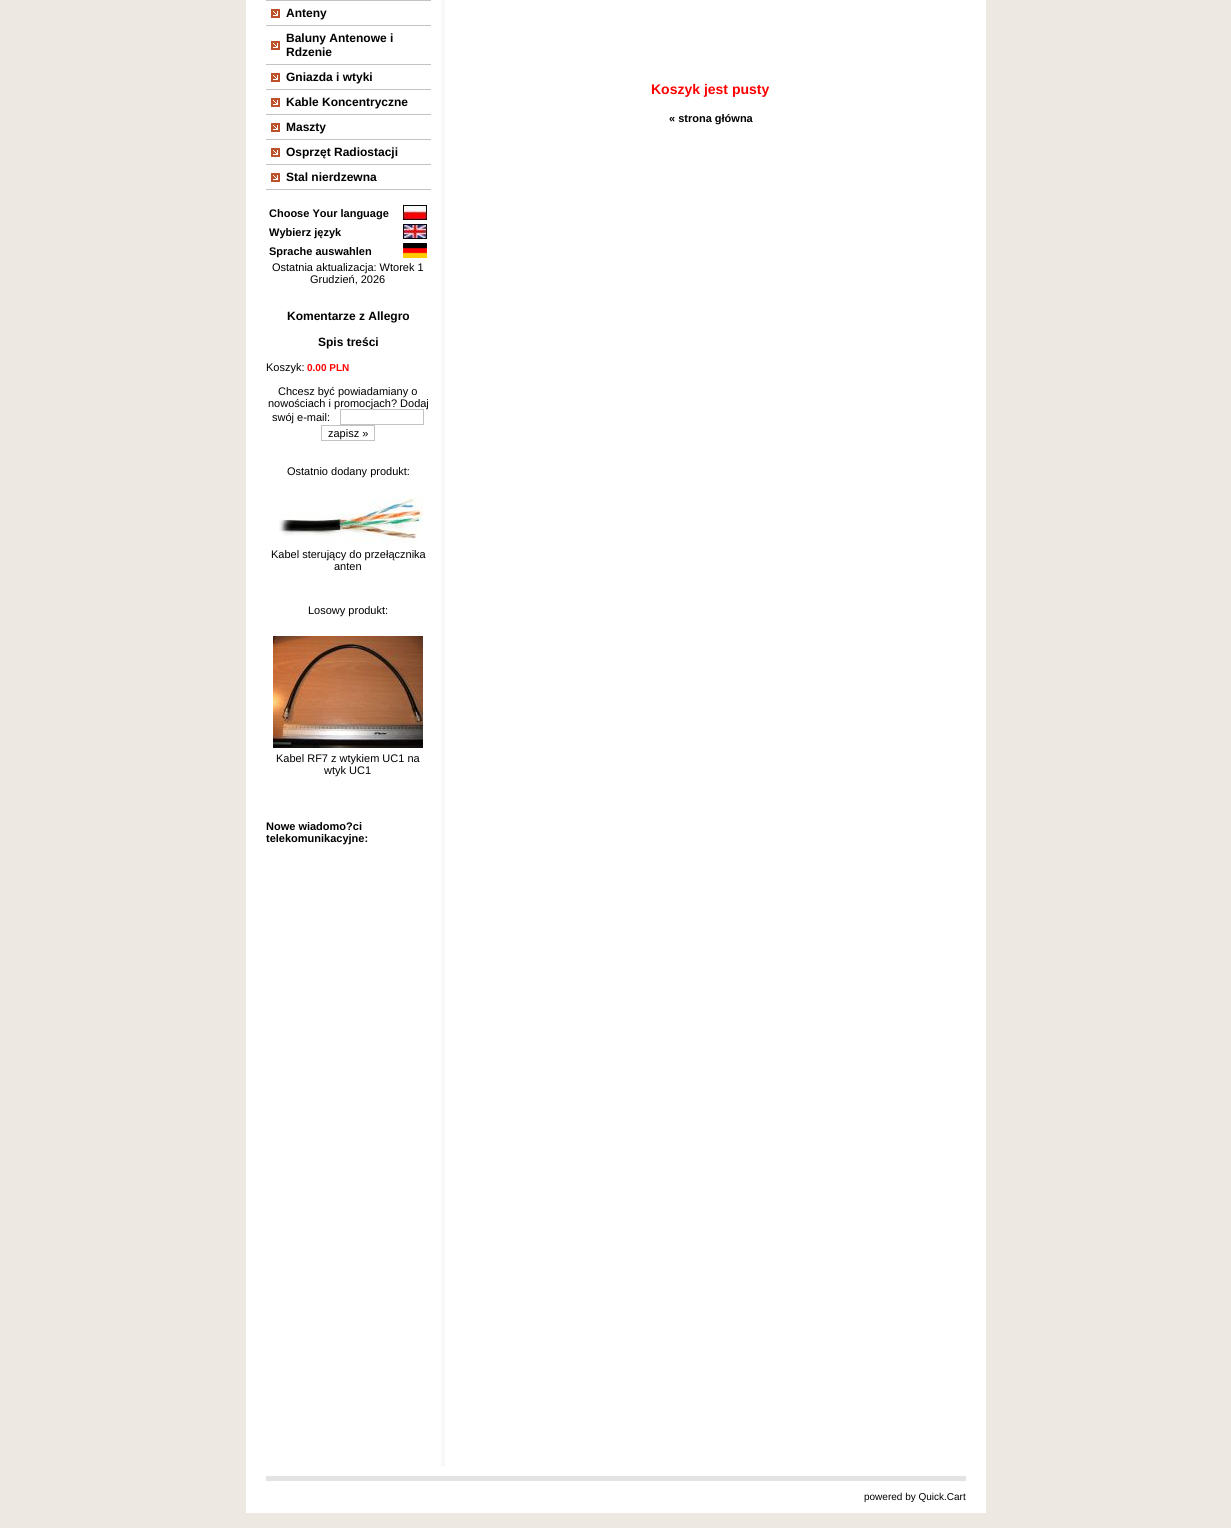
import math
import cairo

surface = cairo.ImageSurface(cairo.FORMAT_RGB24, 1231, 1528)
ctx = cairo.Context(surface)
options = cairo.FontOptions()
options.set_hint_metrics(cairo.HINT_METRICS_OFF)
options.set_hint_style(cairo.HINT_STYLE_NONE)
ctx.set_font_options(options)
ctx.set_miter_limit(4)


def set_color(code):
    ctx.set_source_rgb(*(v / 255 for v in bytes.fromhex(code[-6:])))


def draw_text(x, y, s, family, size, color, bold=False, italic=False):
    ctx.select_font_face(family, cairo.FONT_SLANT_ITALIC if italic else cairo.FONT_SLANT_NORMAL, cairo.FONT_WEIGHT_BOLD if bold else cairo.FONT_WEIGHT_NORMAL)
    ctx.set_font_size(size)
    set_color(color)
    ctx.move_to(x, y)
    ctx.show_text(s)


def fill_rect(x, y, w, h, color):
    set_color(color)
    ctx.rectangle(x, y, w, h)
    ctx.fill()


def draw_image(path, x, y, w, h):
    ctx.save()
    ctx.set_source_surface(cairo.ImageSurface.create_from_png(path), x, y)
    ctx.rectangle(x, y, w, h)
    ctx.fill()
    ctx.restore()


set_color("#ede8e2")
ctx.paint()
fill_rect(246, 0, 740, 1513, "#ffffff")
fill_rect(441, 0, 4, 1466, "#f8f8f8")
fill_rect(266, 0, 165, 1, "#c3c3c3")
fill_rect(266, 25, 165, 1, "#c3c3c3")
draw_image("assets/img1.png", 271, 9, 9, 9)
draw_text(286, 17, "Anteny", "Liberation Sans", 12, "#000000", bold=True)
fill_rect(266, 64, 165, 1, "#c3c3c3")
draw_image("assets/img1.png", 271, 41, 9, 9)
draw_text(286, 42, "Baluny Antenowe i", "Liberation Sans", 12, "#000000", bold=True)
draw_text(286, 56, "Rdzenie", "Liberation Sans", 12, "#000000", bold=True)
fill_rect(266, 89, 165, 1, "#c3c3c3")
draw_image("assets/img1.png", 271, 73, 9, 9)
draw_text(286, 81, "Gniazda i wtyki", "Liberation Sans", 12, "#000000", bold=True)
fill_rect(266, 114, 165, 1, "#c3c3c3")
draw_image("assets/img1.png", 271, 98, 9, 9)
draw_text(286, 106, "Kable Koncentryczne", "Liberation Sans", 12, "#000000", bold=True)
fill_rect(266, 139, 165, 1, "#c3c3c3")
draw_image("assets/img1.png", 271, 123, 9, 9)
draw_text(286, 131, "Maszty", "Liberation Sans", 12, "#000000", bold=True)
fill_rect(266, 164, 165, 1, "#c3c3c3")
draw_image("assets/img1.png", 271, 148, 9, 9)
draw_text(286, 156, "Osprzęt Radiostacji", "Liberation Sans", 12, "#000000", bold=True)
fill_rect(266, 189, 165, 1, "#c3c3c3")
draw_image("assets/img1.png", 271, 173, 9, 9)
draw_text(286, 181, "Stal nierdzewna", "Liberation Sans", 12, "#000000", bold=True)
draw_text(269, 217, "Choose Your language", "Liberation Sans", 11, "#000000", bold=True)
draw_image("assets/img2.png", 403, 205, 24, 15)
draw_text(269, 236, "Wybierz język", "Liberation Sans", 11, "#000000", bold=True)
draw_image("assets/img3.png", 403, 224, 24, 15)
draw_text(269, 255, "Sprache auswahlen", "Liberation Sans", 11, "#000000", bold=True)
draw_image("assets/img4.png", 403, 243, 24, 15)
draw_text(272, 271, "Ostatnia aktualizacja: Wtorek 1", "Liberation Sans", 11, "#000000")
draw_text(310, 283, "Grudzień, 2026", "Liberation Sans", 11, "#000000")
draw_text(287, 320, "Komentarze z Allegro", "Liberation Sans", 12, "#000000", bold=True)
draw_text(318, 346, "Spis treści", "Liberation Sans", 12, "#000000", bold=True)
draw_text(266, 371, "Koszyk:", "Liberation Sans", 11, "#000000")
draw_text(307, 371, "0.00 PLN", "Liberation Sans", 10, "#ff0000", bold=True)
draw_text(278, 395, "Chcesz być powiadamiany o", "Liberation Sans", 11, "#000000")
draw_text(268, 407, "nowościach i promocjach? Dodaj", "Liberation Sans", 11, "#000000")
draw_text(272, 421, "swój e-mail:", "Liberation Sans", 11, "#000000")
ctx.rectangle(340.5, 409.5, 83, 15)
set_color("#c3c3c3")
ctx.set_line_width(1)
ctx.stroke()
ctx.rectangle(321.5, 425.5, 53, 15)
ctx.stroke()
draw_text(328, 437, "zapisz »", "Liberation Sans", 11, "#000000")
draw_text(287, 475, "Ostatnio dodany produkt:", "Liberation Sans", 11, "#000000")
draw_image("assets/img5.png", 279, 497, 144, 47)
draw_text(271, 558, "Kabel sterujący do przełącznika", "Liberation Sans", 11, "#000000")
draw_text(334, 570, "anten", "Liberation Sans", 11, "#000000")
draw_text(308, 614, "Losowy produkt:", "Liberation Sans", 11, "#000000")
draw_image("assets/img6.png", 273, 636, 150, 112)
draw_text(276, 762, "Kabel RF7 z wtykiem UC1 na", "Liberation Sans", 11, "#000000")
draw_text(324, 774, "wtyk UC1", "Liberation Sans", 11, "#000000")
draw_text(266, 830, "Nowe wiadomo?ci", "Liberation Sans", 11, "#000000", bold=True)
draw_text(266, 842, "telekomunikacyjne:", "Liberation Sans", 11, "#000000", bold=True)
draw_text(651, 94, "Koszyk jest pusty", "Liberation Sans", 14, "#ff0000", bold=True)
draw_text(669, 122, "« strona główna", "Liberation Sans", 11, "#000000", bold=True)
fill_rect(266, 1476, 700, 5, "#e3e3e3")
draw_text(864, 1500, "powered by Quick.Cart", "Liberation Sans", 10, "#000000")
surface.write_to_png("output.png")
